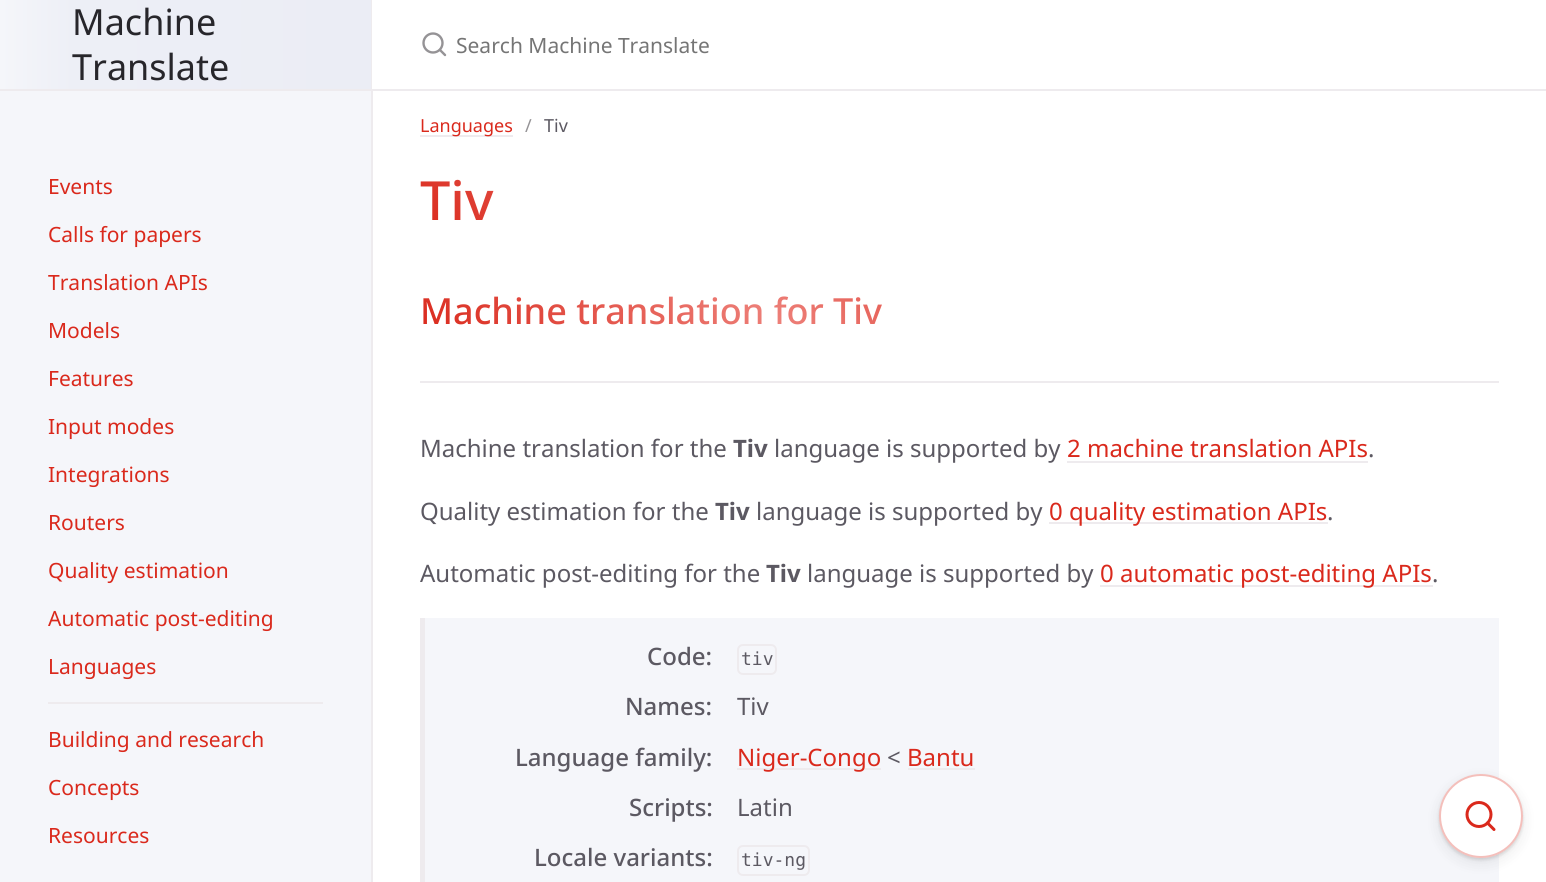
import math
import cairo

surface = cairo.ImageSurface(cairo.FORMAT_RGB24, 1546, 882)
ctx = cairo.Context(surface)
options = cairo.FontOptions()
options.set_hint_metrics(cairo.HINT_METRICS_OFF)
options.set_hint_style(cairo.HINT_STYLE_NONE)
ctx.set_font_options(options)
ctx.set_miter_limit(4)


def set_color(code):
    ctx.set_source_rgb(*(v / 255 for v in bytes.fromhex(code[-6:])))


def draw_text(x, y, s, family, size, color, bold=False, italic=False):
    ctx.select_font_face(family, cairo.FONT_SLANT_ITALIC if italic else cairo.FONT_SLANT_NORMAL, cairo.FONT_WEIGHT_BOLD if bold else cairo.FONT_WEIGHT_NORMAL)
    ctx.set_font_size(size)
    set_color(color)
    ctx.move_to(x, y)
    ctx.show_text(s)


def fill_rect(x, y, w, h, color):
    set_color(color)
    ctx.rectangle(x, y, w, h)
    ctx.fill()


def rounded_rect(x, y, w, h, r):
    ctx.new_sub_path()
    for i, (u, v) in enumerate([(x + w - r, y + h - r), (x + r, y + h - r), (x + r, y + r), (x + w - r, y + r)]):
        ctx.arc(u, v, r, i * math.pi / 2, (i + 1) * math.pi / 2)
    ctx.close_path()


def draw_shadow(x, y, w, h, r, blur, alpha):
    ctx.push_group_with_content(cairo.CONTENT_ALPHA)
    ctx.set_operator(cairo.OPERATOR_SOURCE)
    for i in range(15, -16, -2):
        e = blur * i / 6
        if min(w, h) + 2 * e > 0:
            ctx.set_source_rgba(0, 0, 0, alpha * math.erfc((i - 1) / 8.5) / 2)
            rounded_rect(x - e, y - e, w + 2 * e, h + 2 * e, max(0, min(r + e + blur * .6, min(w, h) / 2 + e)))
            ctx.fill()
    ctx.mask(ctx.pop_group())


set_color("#ffffff")
ctx.paint()
fill_rect(0, 91, 371, 791, "#f5f6fa")
fill_rect(371, 0, 2, 882, "#eeebee")
fill_rect(0, 89, 371, 2, "#eeebee")
gradient = cairo.LinearGradient(371, 44, 0, 44)
gradient.add_color_stop_rgba(0, 0.922, 0.929, 0.961, 1)
gradient.add_color_stop_rgba(0.8, 0.929, 0.937, 0.965, 1)
gradient.add_color_stop_rgba(1, 0.961, 0.965, 0.98, 1)
ctx.set_source(gradient)
ctx.rectangle(0, 0, 371, 89)
ctx.fill()
draw_text(72, 35, "Machine", "Noto Sans", 36, "#27262b")
draw_text(72, 80, "Translate", "Noto Sans", 36, "#27262b")
draw_text(48, 194, "Events", "Noto Sans", 21, "#da291c")
draw_text(48, 242, "Calls for papers", "Noto Sans", 21, "#da291c")
draw_text(48, 290, "Translation APIs", "Noto Sans", 21, "#da291c")
draw_text(48, 338, "Models", "Noto Sans", 21, "#da291c")
draw_text(48, 386, "Features", "Noto Sans", 21, "#da291c")
draw_text(48, 434, "Input modes", "Noto Sans", 21, "#da291c")
draw_text(48, 482, "Integrations", "Noto Sans", 21, "#da291c")
draw_text(48, 530, "Routers", "Noto Sans", 21, "#da291c")
draw_text(48, 578, "Quality estimation", "Noto Sans", 21, "#da291c")
draw_text(48, 626, "Automatic post-editing", "Noto Sans", 21, "#da291c")
draw_text(48, 674, "Languages", "Noto Sans", 21, "#da291c")
fill_rect(48, 702, 275, 2, "#eeebee")
draw_text(48, 747, "Building and research", "Noto Sans", 21, "#da291c")
draw_text(48, 795, "Concepts", "Noto Sans", 21, "#da291c")
draw_text(48, 843, "Resources", "Noto Sans", 21, "#da291c")
fill_rect(372, 0, 1, 89, "#ffffff")
fill_rect(372, 89, 1174, 2, "#eeebee")
ctx.new_path()
ctx.arc(433, 43, 9.5, 0, 2 * math.pi)
set_color("#959396")
ctx.set_line_width(2.4)
ctx.stroke()
ctx.new_path()
ctx.move_to(445, 55)
ctx.line_to(440, 50)
ctx.set_line_cap(cairo.LINE_CAP_ROUND)
ctx.set_line_join(cairo.LINE_JOIN_ROUND)
ctx.stroke()
draw_text(456, 53, "Search Machine Translate", "Noto Sans", 21, "#757575")
fill_rect(420, 135, 93, 2, "#eeebee")
draw_text(420, 132, "Languages", "Noto Sans", 18, "#da291c")
draw_text(525, 132, "/", "Noto Sans", 18, "#959396")
draw_text(544, 132, "Tiv", "Noto Sans", 18, "#5c5962")
ctx.select_font_face("Noto Sans Medium")
ctx.set_font_size(54)
gradient = cairo.LinearGradient(673, 486, 1246, -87)
gradient.add_color_stop_rgba(0, 0.855, 0.161, 0.11, 1)
gradient.add_color_stop_rgba(0.33, 0.929, 0.498, 0.471, 1)
gradient.add_color_stop_rgba(0.67, 0.855, 0.161, 0.11, 1)
gradient.add_color_stop_rgba(1, 0.443, 0.082, 0.059, 1)
ctx.set_source(gradient)
ctx.move_to(420, 220)
ctx.show_text("Tiv")
ctx.set_font_size(36)
gradient = cairo.LinearGradient(678, 591, 1240, 29)
gradient.add_color_stop_rgba(0, 0.855, 0.161, 0.11, 1)
gradient.add_color_stop_rgba(0.33, 0.929, 0.498, 0.471, 1)
gradient.add_color_stop_rgba(0.67, 0.855, 0.161, 0.11, 1)
gradient.add_color_stop_rgba(1, 0.443, 0.082, 0.059, 1)
ctx.set_source(gradient)
ctx.move_to(420, 324)
ctx.show_text("Machine translation for Tiv")
fill_rect(420, 381, 1079, 2, "#eeebee")
draw_text(420, 457, "Machine translation for the", "Noto Sans", 24, "#5c5962")
draw_text(733, 457, "Tiv", "Noto Sans", 24, "#5c5962", bold=True)
draw_text(774, 457, "language is supported by", "Noto Sans", 24, "#5c5962")
draw_text(1067, 457, "2 machine translation APIs", "Noto Sans", 24, "#da291c")
fill_rect(1067, 461, 301, 2, "#eeebee")
draw_text(1368, 457, ".", "Noto Sans", 24, "#5c5962")
draw_text(420, 520, "Quality estimation for the", "Noto Sans", 24, "#5c5962")
draw_text(715, 520, "Tiv", "Noto Sans", 24, "#5c5962", bold=True)
draw_text(756, 520, "language is supported by", "Noto Sans", 24, "#5c5962")
fill_rect(1049, 522, 279, 2, "#eeebee")
draw_text(1049, 520, "0 quality estimation APIs", "Noto Sans", 24, "#da291c")
draw_text(1327, 520, ".", "Noto Sans", 24, "#5c5962")
draw_text(420, 582, "Automatic post-editing for the", "Noto Sans", 24, "#5c5962")
draw_text(766, 582, "Tiv", "Noto Sans", 24, "#5c5962", bold=True)
draw_text(807, 582, "language is supported by", "Noto Sans", 24, "#5c5962")
fill_rect(1100, 585, 333, 2, "#eeebee")
draw_text(1100, 582, "0 automatic post-editing APIs", "Noto Sans", 24, "#da291c")
draw_text(1432, 582, ".", "Noto Sans", 24, "#5c5962")
fill_rect(425, 618, 1074, 264, "#f5f6fa")
fill_rect(420, 618, 5, 264, "#eeebee")
draw_text(647, 665, "Code:", "Noto Sans Medium", 24, "#5c5962")
rounded_rect(738, 645, 38, 29, 5)
set_color("#eeebee")
ctx.set_line_width(2)
ctx.set_line_cap(cairo.LINE_CAP_BUTT)
ctx.set_line_join(cairo.LINE_JOIN_MITER)
ctx.stroke()
draw_text(741, 665, "tiv", "DejaVu Sans Mono", 18, "#5c5962")
draw_text(625, 715, "Names:", "Noto Sans Medium", 24, "#5c5962")
draw_text(737, 715, "Tiv", "Noto Sans", 24, "#5c5962")
draw_text(515, 766, "Language family:", "Noto Sans Medium", 24, "#5c5962")
fill_rect(737, 768, 144, 2, "#eeebee")
draw_text(737, 766, "Niger-Congo", "Noto Sans", 24, "#da291c")
draw_text(887, 766, "<", "Noto Sans", 24, "#5c5962")
draw_text(907, 766, "Bantu", "Noto Sans", 24, "#da291c")
fill_rect(908, 768, 67, 2, "#eeebee")
draw_text(629, 816, "Scripts:", "Noto Sans Medium", 24, "#5c5962")
draw_text(737, 816, "Latin", "Noto Sans", 24, "#5c5962")
draw_text(534, 866, "Locale variants:", "Noto Sans Medium", 24, "#5c5962")
rounded_rect(738, 846, 71, 29, 5)
set_color("#eeebee")
ctx.stroke()
draw_text(741, 866, "tiv-ng", "DejaVu Sans Mono", 18, "#5c5962")
set_color("#000000")
draw_shadow(1439, 779, 84, 84, 42, 7.5, 0.08)
draw_shadow(1439, 776, 84, 84, 42, 1.5, 0.12)
set_color("#ffffff")
ctx.arc(1481, 816, 42, 0, 2 * math.pi)
ctx.fill()
ctx.arc(1481, 816, 41, 0, 2 * math.pi)
ctx.set_source_rgba(0.855, 0.161, 0.11, 0.3)
ctx.stroke()
ctx.arc(1479, 814.5, 12, 0, 2 * math.pi)
set_color("#da291c")
ctx.set_line_width(3)
ctx.stroke()
ctx.new_path()
ctx.move_to(1494, 829.5)
ctx.line_to(1487.5, 823)
ctx.set_line_cap(cairo.LINE_CAP_ROUND)
ctx.set_line_join(cairo.LINE_JOIN_ROUND)
ctx.stroke()
surface.write_to_png("output.png")
